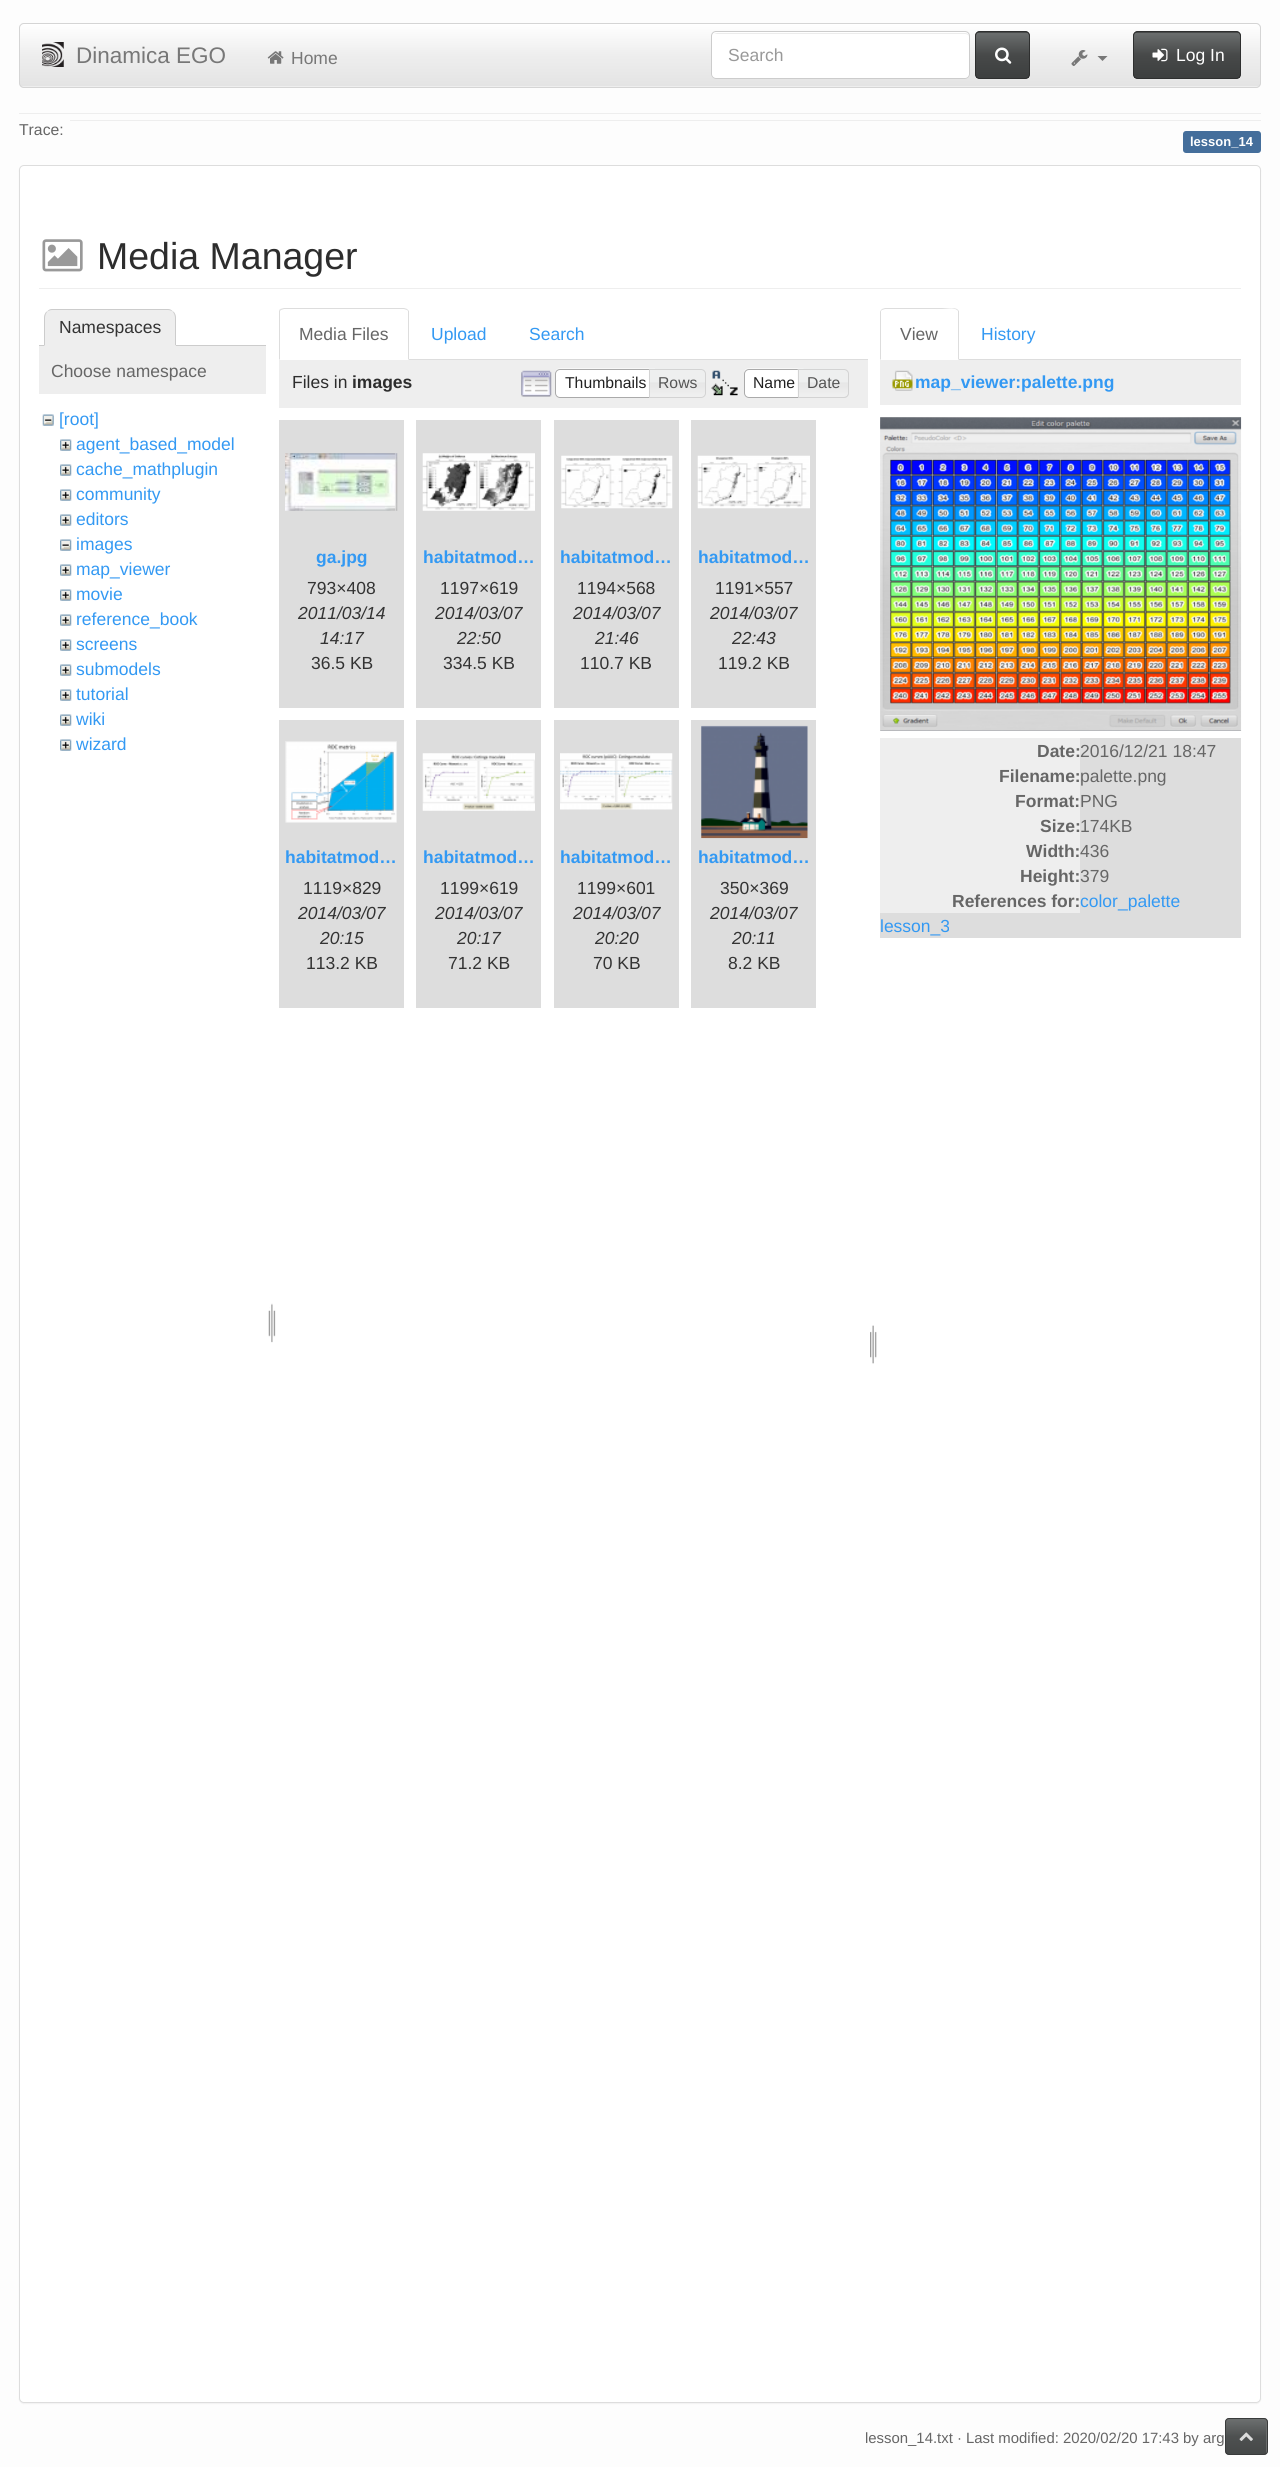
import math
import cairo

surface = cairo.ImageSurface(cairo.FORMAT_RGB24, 1280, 2467)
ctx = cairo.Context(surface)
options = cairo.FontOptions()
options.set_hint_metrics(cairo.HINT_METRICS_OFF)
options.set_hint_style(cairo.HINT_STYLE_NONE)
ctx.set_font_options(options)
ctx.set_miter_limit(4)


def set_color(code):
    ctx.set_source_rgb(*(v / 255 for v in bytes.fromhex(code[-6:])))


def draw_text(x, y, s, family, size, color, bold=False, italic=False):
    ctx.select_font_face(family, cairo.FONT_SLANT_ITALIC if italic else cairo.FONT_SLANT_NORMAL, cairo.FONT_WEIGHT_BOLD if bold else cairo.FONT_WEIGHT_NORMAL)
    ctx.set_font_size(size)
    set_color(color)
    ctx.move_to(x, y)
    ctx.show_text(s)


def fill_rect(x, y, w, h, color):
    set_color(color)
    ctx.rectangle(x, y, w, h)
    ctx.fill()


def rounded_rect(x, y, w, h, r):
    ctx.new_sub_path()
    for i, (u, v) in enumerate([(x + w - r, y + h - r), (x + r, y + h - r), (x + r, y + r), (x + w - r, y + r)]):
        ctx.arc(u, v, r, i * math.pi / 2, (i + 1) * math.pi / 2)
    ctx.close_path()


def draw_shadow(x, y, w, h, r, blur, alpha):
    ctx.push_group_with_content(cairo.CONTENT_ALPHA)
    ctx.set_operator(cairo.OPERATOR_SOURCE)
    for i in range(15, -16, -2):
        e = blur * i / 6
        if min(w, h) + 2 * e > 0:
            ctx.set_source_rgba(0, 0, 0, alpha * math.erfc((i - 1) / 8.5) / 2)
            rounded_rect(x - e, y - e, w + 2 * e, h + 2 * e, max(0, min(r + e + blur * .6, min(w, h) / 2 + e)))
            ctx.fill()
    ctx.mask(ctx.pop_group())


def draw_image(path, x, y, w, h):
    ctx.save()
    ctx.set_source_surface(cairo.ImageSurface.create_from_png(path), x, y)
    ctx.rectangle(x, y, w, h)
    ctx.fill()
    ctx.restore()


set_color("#fdfdfd")
ctx.paint()
set_color("#eeeeee")
rounded_rect(19, 23, 1242, 65, 5)
ctx.fill()
gradient = cairo.LinearGradient(640, 24, 640, 86)
gradient.add_color_stop_rgba(0, 1, 1, 1, 1)
gradient.add_color_stop_rgba(0.5, 0.933, 0.933, 0.933, 1)
gradient.add_color_stop_rgba(1, 0.894, 0.894, 0.894, 1)
ctx.set_source(gradient)
ctx.rectangle(20, 24, 1240, 62)
ctx.fill()
rounded_rect(19.5, 23.5, 1241, 64, 4.5)
set_color("#d5d5d5")
ctx.set_line_width(1)
ctx.stroke()
draw_image("assets/img1.png", 42, 42, 22, 25)
draw_text(76, 63, "Dinamica EGO", "Liberation Sans", 22.5, "#777777")
draw_image("assets/img2.png", 267, 51, 17, 13)
draw_text(291, 64, "Home", "Liberation Sans", 17.5, "#777777")
set_color("#ffffff")
rounded_rect(711, 31, 259, 48, 5)
ctx.fill()
set_color("#ececec")
ctx.new_path()
ctx.move_to(716, 34)
ctx.line_to(965, 34)
ctx.curve_to(967, 34, 969, 35, 969, 38)
ctx.curve_to(969, 35, 968, 33, 965, 33)
ctx.line_to(717, 33)
ctx.line_to(714, 34)
ctx.close_path()
ctx.fill()
rounded_rect(711.5, 31.5, 258, 47, 4.5)
set_color("#cccccc")
ctx.stroke()
draw_text(728, 61, "Search", "Liberation Sans", 17.5, "#999999")
set_color("#474949")
rounded_rect(975, 31, 55, 48, 5)
ctx.fill()
gradient = cairo.LinearGradient(1003, 32, 1003, 78)
gradient.add_color_stop_rgba(0, 0.427, 0.439, 0.439, 1)
gradient.add_color_stop_rgba(0.5, 0.278, 0.286, 0.286, 1)
gradient.add_color_stop_rgba(1, 0.239, 0.247, 0.247, 1)
ctx.set_source(gradient)
ctx.rectangle(976, 33, 53, 45)
ctx.fill()
rounded_rect(975.5, 31.5, 54, 47, 4.5)
set_color("#2e2f2f")
ctx.stroke()
draw_image("assets/img3.png", 995, 47, 17, 17)
draw_image("assets/img4.png", 1071, 50, 17, 16)
set_color("#777777")
ctx.new_path()
ctx.move_to(1097.5, 56)
ctx.line_to(1107.5, 56)
ctx.line_to(1102.5, 61)
ctx.close_path()
ctx.fill()
set_color("#474949")
rounded_rect(1133, 31, 108, 48, 5)
ctx.fill()
gradient = cairo.LinearGradient(1187, 32, 1187, 78)
gradient.add_color_stop_rgba(0, 0.427, 0.439, 0.439, 1)
gradient.add_color_stop_rgba(0.5, 0.278, 0.286, 0.286, 1)
gradient.add_color_stop_rgba(1, 0.239, 0.247, 0.247, 1)
ctx.set_source(gradient)
ctx.rectangle(1134, 33, 106, 45)
ctx.fill()
rounded_rect(1133.5, 31.5, 107, 47, 4.5)
set_color("#2e2f2f")
ctx.stroke()
draw_image("assets/img5.png", 1152, 48, 16, 14)
draw_text(1176, 61, "Log In", "Liberation Sans", 17.5, "#ffffff")
fill_rect(19, 113, 1242, 1, "#eeeeee")
fill_rect(70, 120, 1191, 1, "#eeeeee")
draw_text(19, 135, "Trace:", "Liberation Sans", 15.75, "#666666")
set_color("#446e9b")
rounded_rect(1183, 131, 78, 22, 3)
ctx.fill()
draw_text(1190, 146, "lesson_14", "Liberation Sans", 13, "#ffffff", bold=True)
set_color("#000000")
draw_shadow(19, 166, 1242, 2238, 5, 0.5, 0.05)
set_color("#ffffff")
rounded_rect(19.5, 165.5, 1241, 2237, 4.5)
ctx.fill_preserve()
set_color("#dddddd")
ctx.stroke()
fill_rect(39, 288, 1202, 1, "#eeeeee")
draw_image("assets/img6.png", 42, 239, 41, 33)
draw_text(97, 269, "Media Manager", "Liberation Sans", 37.5, "#2d2d2d")
fill_rect(39, 345, 227, 1, "#cccccc")
set_color("#eeeeee")
ctx.new_path()
ctx.move_to(53, 309)
ctx.line_to(167, 309)
ctx.curve_to(172, 309, 176, 313, 176, 318)
ctx.line_to(176, 346)
ctx.line_to(44, 346)
ctx.line_to(44, 318)
ctx.curve_to(44, 313, 48, 309, 53, 309)
ctx.close_path()
ctx.fill()
set_color("#cccccc")
ctx.new_path()
ctx.move_to(52, 309)
ctx.curve_to(50, 309, 48, 310, 47, 312)
ctx.curve_to(48, 311, 50, 310, 52, 310)
ctx.line_to(168, 310)
ctx.curve_to(170, 310, 172, 311, 173, 312)
ctx.curve_to(172, 310, 170, 309, 168, 309)
ctx.close_path()
ctx.fill()
ctx.new_path()
ctx.move_to(176, 346)
ctx.line_to(176, 318)
ctx.curve_to(176, 315.5, 175, 313, 173.5, 311.5)
ctx.line_to(173, 312)
ctx.curve_to(174, 313.5, 175, 315.5, 175, 318)
ctx.line_to(175, 345)
ctx.close_path()
ctx.fill()
set_color("#eeeeee")
ctx.new_path()
ctx.move_to(176, 346)
ctx.line_to(175, 345)
ctx.line_to(45, 345)
ctx.line_to(44, 346)
ctx.close_path()
ctx.fill()
set_color("#cccccc")
ctx.new_path()
ctx.move_to(46.5, 311.5)
ctx.curve_to(45, 313, 44, 315.5, 44, 318)
ctx.line_to(44, 346)
ctx.line_to(45, 345)
ctx.line_to(45, 318)
ctx.curve_to(45, 315.5, 46, 313.5, 47, 312)
ctx.close_path()
ctx.fill()
draw_text(59, 333, "Namespaces", "Liberation Sans", 17.5, "#333333")
fill_rect(39, 346, 227, 48, "#eeeeee")
draw_text(51, 377, "Choose namespace", "Liberation Sans", 17.5, "#666666")
draw_image("assets/img7.png", 42, 414, 12, 12)
draw_text(59, 425, "[root]", "Liberation Sans", 17.5, "#3399f3")
draw_image("assets/img8.png", 60, 439, 12, 12)
draw_text(76, 450, "agent_based_model", "Liberation Sans", 17.5, "#3399f3")
draw_image("assets/img8.png", 60, 464, 12, 12)
draw_text(76, 475, "cache_mathplugin", "Liberation Sans", 17.5, "#3399f3")
draw_image("assets/img8.png", 60, 489, 12, 12)
draw_text(76, 500, "community", "Liberation Sans", 17.5, "#3399f3")
draw_image("assets/img8.png", 60, 514, 12, 12)
draw_text(76, 525, "editors", "Liberation Sans", 17.5, "#3399f3")
draw_image("assets/img9.png", 60, 539, 12, 12)
draw_text(76, 550, "images", "Liberation Sans", 17.5, "#3399f3")
draw_image("assets/img8.png", 60, 564, 12, 12)
draw_text(76, 575, "map_viewer", "Liberation Sans", 17.5, "#3399f3")
draw_image("assets/img8.png", 60, 589, 12, 12)
draw_text(76, 600, "movie", "Liberation Sans", 17.5, "#3399f3")
draw_image("assets/img8.png", 60, 614, 12, 12)
draw_text(76, 625, "reference_book", "Liberation Sans", 17.5, "#3399f3")
draw_image("assets/img8.png", 60, 639, 12, 12)
draw_text(76, 650, "screens", "Liberation Sans", 17.5, "#3399f3")
draw_image("assets/img8.png", 60, 664, 12, 12)
draw_text(76, 675, "submodels", "Liberation Sans", 17.5, "#3399f3")
draw_image("assets/img8.png", 60, 689, 12, 12)
draw_text(76, 700, "tutorial", "Liberation Sans", 17.5, "#3399f3")
draw_image("assets/img8.png", 60, 714, 12, 12)
draw_text(76, 725, "wiki", "Liberation Sans", 17.5, "#3399f3")
draw_image("assets/img8.png", 60, 739, 12, 12)
draw_text(76, 750, "wizard", "Liberation Sans", 17.5, "#3399f3")
draw_image("assets/img10.png", 268, 1303, 8, 40)
fill_rect(409, 359, 459, 1, "#dddddd")
ctx.new_path()
ctx.move_to(284, 308)
ctx.line_to(280, 309)
ctx.line_to(281, 310)
ctx.line_to(284, 309)
ctx.line_to(404, 309)
ctx.line_to(407, 310)
ctx.line_to(407, 309)
ctx.line_to(404, 308)
ctx.close_path()
ctx.fill()
ctx.new_path()
ctx.move_to(407, 309)
ctx.line_to(409, 311)
ctx.line_to(409, 360)
ctx.line_to(408, 359)
ctx.line_to(408, 311)
ctx.line_to(407, 310)
ctx.close_path()
ctx.fill()
ctx.new_path()
ctx.move_to(280, 309)
ctx.line_to(279, 311)
ctx.line_to(279, 360)
ctx.line_to(280, 359)
ctx.line_to(280, 311)
ctx.line_to(281, 310)
ctx.close_path()
ctx.fill()
draw_text(299, 340, "Media Files", "Liberation Sans", 17.5, "#666666")
draw_text(431, 340, "Upload", "Liberation Sans", 17.5, "#3399f3")
draw_text(529, 340, "Search", "Liberation Sans", 17.5, "#3399f3")
fill_rect(279, 360, 589, 48, "#eeeeee")
draw_text(292, 388, "Files in", "Liberation Sans", 17.5, "#2d2d2d")
draw_text(352, 388, "images", "Liberation Sans", 17.5, "#2d2d2d", bold=True)
draw_image("assets/img11.png", 521, 370, 31, 27)
set_color("#ffffff")
ctx.new_path()
ctx.move_to(560, 369)
ctx.line_to(655, 369)
ctx.line_to(655, 398)
ctx.line_to(560, 398)
ctx.curve_to(557, 398, 555, 396, 555, 393)
ctx.line_to(555, 374)
ctx.curve_to(555, 371, 557, 369, 560, 369)
ctx.close_path()
ctx.fill()
draw_image("assets/img12.png", 555, 368, 100, 4)
ctx.new_path()
ctx.move_to(560, 369.5)
ctx.line_to(654.5, 369.5)
ctx.line_to(654.5, 397.5)
ctx.line_to(560, 397.5)
ctx.curve_to(557.5, 397.5, 555.5, 395.5, 555.5, 393)
ctx.line_to(555.5, 374)
ctx.curve_to(555.5, 371.5, 557.5, 369.5, 560, 369.5)
ctx.close_path()
set_color("#aaaaaa")
ctx.stroke()
draw_text(565, 388, "Thumbnails", "Liberation Sans", 15.75, "#212121")
draw_image("assets/img13.png", 648, 368, 58, 29)
ctx.new_path()
ctx.move_to(649.5, 369.5)
ctx.line_to(701, 369.5)
ctx.curve_to(703.5, 369.5, 705.5, 371.5, 705.5, 374)
ctx.line_to(705.5, 393)
ctx.curve_to(705.5, 395.5, 703.5, 397.5, 701, 397.5)
ctx.line_to(649.5, 397.5)
ctx.close_path()
set_color("#d3d3d3")
ctx.stroke()
draw_text(658, 388, "Rows", "Liberation Sans", 15.75, "#555555")
draw_image("assets/img14.png", 711, 370, 27, 26)
set_color("#ffffff")
ctx.new_path()
ctx.move_to(749, 369)
ctx.line_to(804, 369)
ctx.line_to(804, 398)
ctx.line_to(749, 398)
ctx.curve_to(746, 398, 744, 396, 744, 393)
ctx.line_to(744, 374)
ctx.curve_to(744, 371, 746, 369, 749, 369)
ctx.close_path()
ctx.fill()
draw_image("assets/img15.png", 744, 368, 60, 5)
ctx.new_path()
ctx.move_to(749, 369.5)
ctx.line_to(803.5, 369.5)
ctx.line_to(803.5, 397.5)
ctx.line_to(749, 397.5)
ctx.curve_to(746.5, 397.5, 744.5, 395.5, 744.5, 393)
ctx.line_to(744.5, 374)
ctx.curve_to(744.5, 371.5, 746.5, 369.5, 749, 369.5)
ctx.close_path()
set_color("#aaaaaa")
ctx.stroke()
draw_text(753, 388, "Name", "Liberation Sans", 15.75, "#212121")
set_color("#e6e6e6")
ctx.new_path()
ctx.move_to(798, 369)
ctx.line_to(844, 369)
ctx.curve_to(847, 369, 849, 371, 849, 374)
ctx.line_to(849, 393)
ctx.curve_to(849, 396, 847, 398, 844, 398)
ctx.line_to(798, 398)
ctx.close_path()
ctx.fill()
draw_image("assets/img16.png", 797, 368, 52, 29)
ctx.new_path()
ctx.move_to(798.5, 369.5)
ctx.line_to(844, 369.5)
ctx.curve_to(846.5, 369.5, 848.5, 371.5, 848.5, 374)
ctx.line_to(848.5, 393)
ctx.curve_to(848.5, 395.5, 846.5, 397.5, 844, 397.5)
ctx.line_to(798.5, 397.5)
ctx.close_path()
set_color("#d3d3d3")
ctx.stroke()
draw_text(807, 388, "Date", "Liberation Sans", 15.75, "#555555")
fill_rect(279, 420, 125, 288, "#dddddd")
draw_image("assets/img17.png", 285, 453, 113, 58)
draw_text(316, 563, "ga.jpg", "Liberation Sans", 17.5, "#3399f3", bold=True)
draw_text(307, 594, "793×408", "Liberation Sans", 17.5, "#333333")
draw_text(298, 619, "2011/03/14", "Liberation Sans", 17.5, "#333333", italic=True)
draw_text(320, 644, "14:17", "Liberation Sans", 17.5, "#333333", italic=True)
draw_text(311, 669, "36.5 KB", "Liberation Sans", 17.5, "#333333")
fill_rect(416, 420, 125, 288, "#dddddd")
draw_image("assets/img18.png", 422, 453, 113, 58)
draw_text(423, 563, "habitatmod…", "Liberation Sans", 17.5, "#3399f3", bold=True)
draw_text(440, 594, "1197×619", "Liberation Sans", 17.5, "#333333")
draw_text(435, 619, "2014/03/07", "Liberation Sans", 17.5, "#333333", italic=True)
draw_text(457, 644, "22:50", "Liberation Sans", 17.5, "#333333", italic=True)
draw_text(443, 669, "334.5 KB", "Liberation Sans", 17.5, "#333333")
fill_rect(554, 420, 125, 288, "#dddddd")
draw_image("assets/img19.png", 561, 455, 112, 54)
draw_text(560, 563, "habitatmod…", "Liberation Sans", 17.5, "#3399f3", bold=True)
draw_text(577, 594, "1194×568", "Liberation Sans", 17.5, "#333333")
draw_text(573, 619, "2014/03/07", "Liberation Sans", 17.5, "#333333", italic=True)
draw_text(595, 644, "21:46", "Liberation Sans", 17.5, "#333333", italic=True)
draw_text(580, 669, "110.7 KB", "Liberation Sans", 17.5, "#333333")
fill_rect(691, 420, 125, 288, "#dddddd")
draw_image("assets/img20.png", 697, 455, 113, 54)
draw_text(698, 563, "habitatmod…", "Liberation Sans", 17.5, "#3399f3", bold=True)
draw_text(715, 594, "1191×557", "Liberation Sans", 17.5, "#333333")
draw_text(710, 619, "2014/03/07", "Liberation Sans", 17.5, "#333333", italic=True)
draw_text(732, 644, "22:43", "Liberation Sans", 17.5, "#333333", italic=True)
draw_text(718, 669, "119.2 KB", "Liberation Sans", 17.5, "#333333")
fill_rect(279, 720, 125, 288, "#dddddd")
draw_image("assets/img21.png", 285, 741, 112, 82)
draw_text(285, 863, "habitatmod…", "Liberation Sans", 17.5, "#3399f3", bold=True)
draw_text(303, 894, "1119×829", "Liberation Sans", 17.5, "#333333")
draw_text(298, 919, "2014/03/07", "Liberation Sans", 17.5, "#333333", italic=True)
draw_text(320, 944, "20:15", "Liberation Sans", 17.5, "#333333", italic=True)
draw_text(306, 969, "113.2 KB", "Liberation Sans", 17.5, "#333333")
fill_rect(416, 720, 125, 288, "#dddddd")
draw_image("assets/img22.png", 422, 753, 113, 58)
draw_text(423, 863, "habitatmod…", "Liberation Sans", 17.5, "#3399f3", bold=True)
draw_text(440, 894, "1199×619", "Liberation Sans", 17.5, "#333333")
draw_text(435, 919, "2014/03/07", "Liberation Sans", 17.5, "#333333", italic=True)
draw_text(457, 944, "20:17", "Liberation Sans", 17.5, "#333333", italic=True)
draw_text(448, 969, "71.2 KB", "Liberation Sans", 17.5, "#333333")
fill_rect(554, 720, 125, 288, "#dddddd")
draw_image("assets/img23.png", 560, 753, 113, 57)
draw_text(560, 863, "habitatmod…", "Liberation Sans", 17.5, "#3399f3", bold=True)
draw_text(577, 894, "1199×601", "Liberation Sans", 17.5, "#333333")
draw_text(573, 919, "2014/03/07", "Liberation Sans", 17.5, "#333333", italic=True)
draw_text(595, 944, "20:20", "Liberation Sans", 17.5, "#333333", italic=True)
draw_text(593, 969, "70 KB", "Liberation Sans", 17.5, "#333333")
fill_rect(691, 720, 125, 288, "#dddddd")
draw_image("assets/img24.png", 701, 725, 107, 114)
draw_text(698, 863, "habitatmod…", "Liberation Sans", 17.5, "#3399f3", bold=True)
draw_text(720, 894, "350×369", "Liberation Sans", 17.5, "#333333")
draw_text(710, 919, "2014/03/07", "Liberation Sans", 17.5, "#333333", italic=True)
draw_text(732, 944, "20:11", "Liberation Sans", 17.5, "#333333", italic=True)
draw_text(728, 969, "8.2 KB", "Liberation Sans", 17.5, "#333333")
draw_image("assets/img25.png", 870, 1325, 7, 39)
fill_rect(959, 359, 282, 1, "#dddddd")
ctx.new_path()
ctx.move_to(885, 308)
ctx.line_to(882, 309)
ctx.line_to(882, 310)
ctx.line_to(885, 309)
ctx.line_to(942, 309)
ctx.curve_to(947, 309, 953, 307, 957, 310)
ctx.line_to(957, 309)
ctx.line_to(954, 308)
ctx.close_path()
ctx.fill()
ctx.new_path()
ctx.move_to(957, 309)
ctx.line_to(959, 311)
ctx.line_to(959, 360)
ctx.line_to(958, 359)
ctx.line_to(958, 311)
ctx.line_to(957, 310)
ctx.close_path()
ctx.fill()
ctx.new_path()
ctx.move_to(880, 360)
ctx.line_to(881, 359)
ctx.line_to(881, 311)
ctx.line_to(882, 310)
ctx.line_to(882, 309)
ctx.curve_to(881, 310, 880, 311, 880, 312)
ctx.close_path()
ctx.fill()
draw_text(900, 340, "View", "Liberation Sans", 17.5, "#666666")
draw_text(981, 340, "History", "Liberation Sans", 17.5, "#3399f3")
fill_rect(880, 360, 361, 45, "#eeeeee")
draw_image("assets/img26.png", 892, 370, 21, 21)
draw_text(915, 388, "map_viewer:palette.png", "Liberation Sans", 17.5, "#3399f3", bold=True)
draw_image("assets/img27.png", 880, 417, 362, 314)
fill_rect(880, 738, 200, 175, "#eeeeee")
draw_text(1037, 757, "Date:", "Liberation Sans", 17.5, "#666666", bold=True)
fill_rect(1080, 738, 161, 175, "#dddddd")
draw_text(1080, 757, "2016/12/21 18:47", "Liberation Sans", 17.5, "#666666")
draw_text(999, 782, "Filename:", "Liberation Sans", 17.5, "#666666", bold=True)
draw_text(1080, 782, "palette.png", "Liberation Sans", 17.5, "#666666")
draw_text(1015, 807, "Format:", "Liberation Sans", 17.5, "#666666", bold=True)
draw_text(1080, 807, "PNG", "Liberation Sans", 17.5, "#666666")
draw_text(1040, 832, "Size:", "Liberation Sans", 17.5, "#666666", bold=True)
draw_text(1080, 832, "174KB", "Liberation Sans", 17.5, "#666666")
draw_text(1026, 857, "Width:", "Liberation Sans", 17.5, "#666666", bold=True)
draw_text(1080, 857, "436", "Liberation Sans", 17.5, "#666666")
draw_text(1020, 882, "Height:", "Liberation Sans", 17.5, "#666666", bold=True)
draw_text(1080, 882, "379", "Liberation Sans", 17.5, "#666666")
draw_text(952, 907, "References for:", "Liberation Sans", 17.5, "#666666", bold=True)
draw_text(1080, 907, "color_palette", "Liberation Sans", 17.5, "#3399f3")
fill_rect(880, 913, 361, 25, "#dddddd")
draw_text(880, 932, "lesson_3", "Liberation Sans", 17.5, "#3399f3")
draw_text(865, 2443, "lesson_14.txt · Last modified: 2020/02/20 17:43 by arg", "Liberation Sans", 14.9, "#666666")
ctx.set_source_rgba(0.278, 0.286, 0.286, 0.8)
rounded_rect(1225, 2418, 43, 37, 4)
ctx.fill()
gradient = cairo.LinearGradient(1246, 2419, 1246, 2454)
gradient.add_color_stop_rgba(0, 0.427, 0.439, 0.439, 0.8)
gradient.add_color_stop_rgba(0.5, 0.278, 0.286, 0.286, 0.8)
gradient.add_color_stop_rgba(1, 0.239, 0.247, 0.247, 0.8)
ctx.set_source(gradient)
ctx.rectangle(1226, 2419, 40, 35)
ctx.fill()
rounded_rect(1225.5, 2418.5, 42, 36, 3.5)
ctx.set_source_rgba(0.18, 0.184, 0.184, 0.8)
ctx.stroke()
draw_image("assets/img28.png", 1239, 2432, 14, 9)
surface.write_to_png("output.png")
